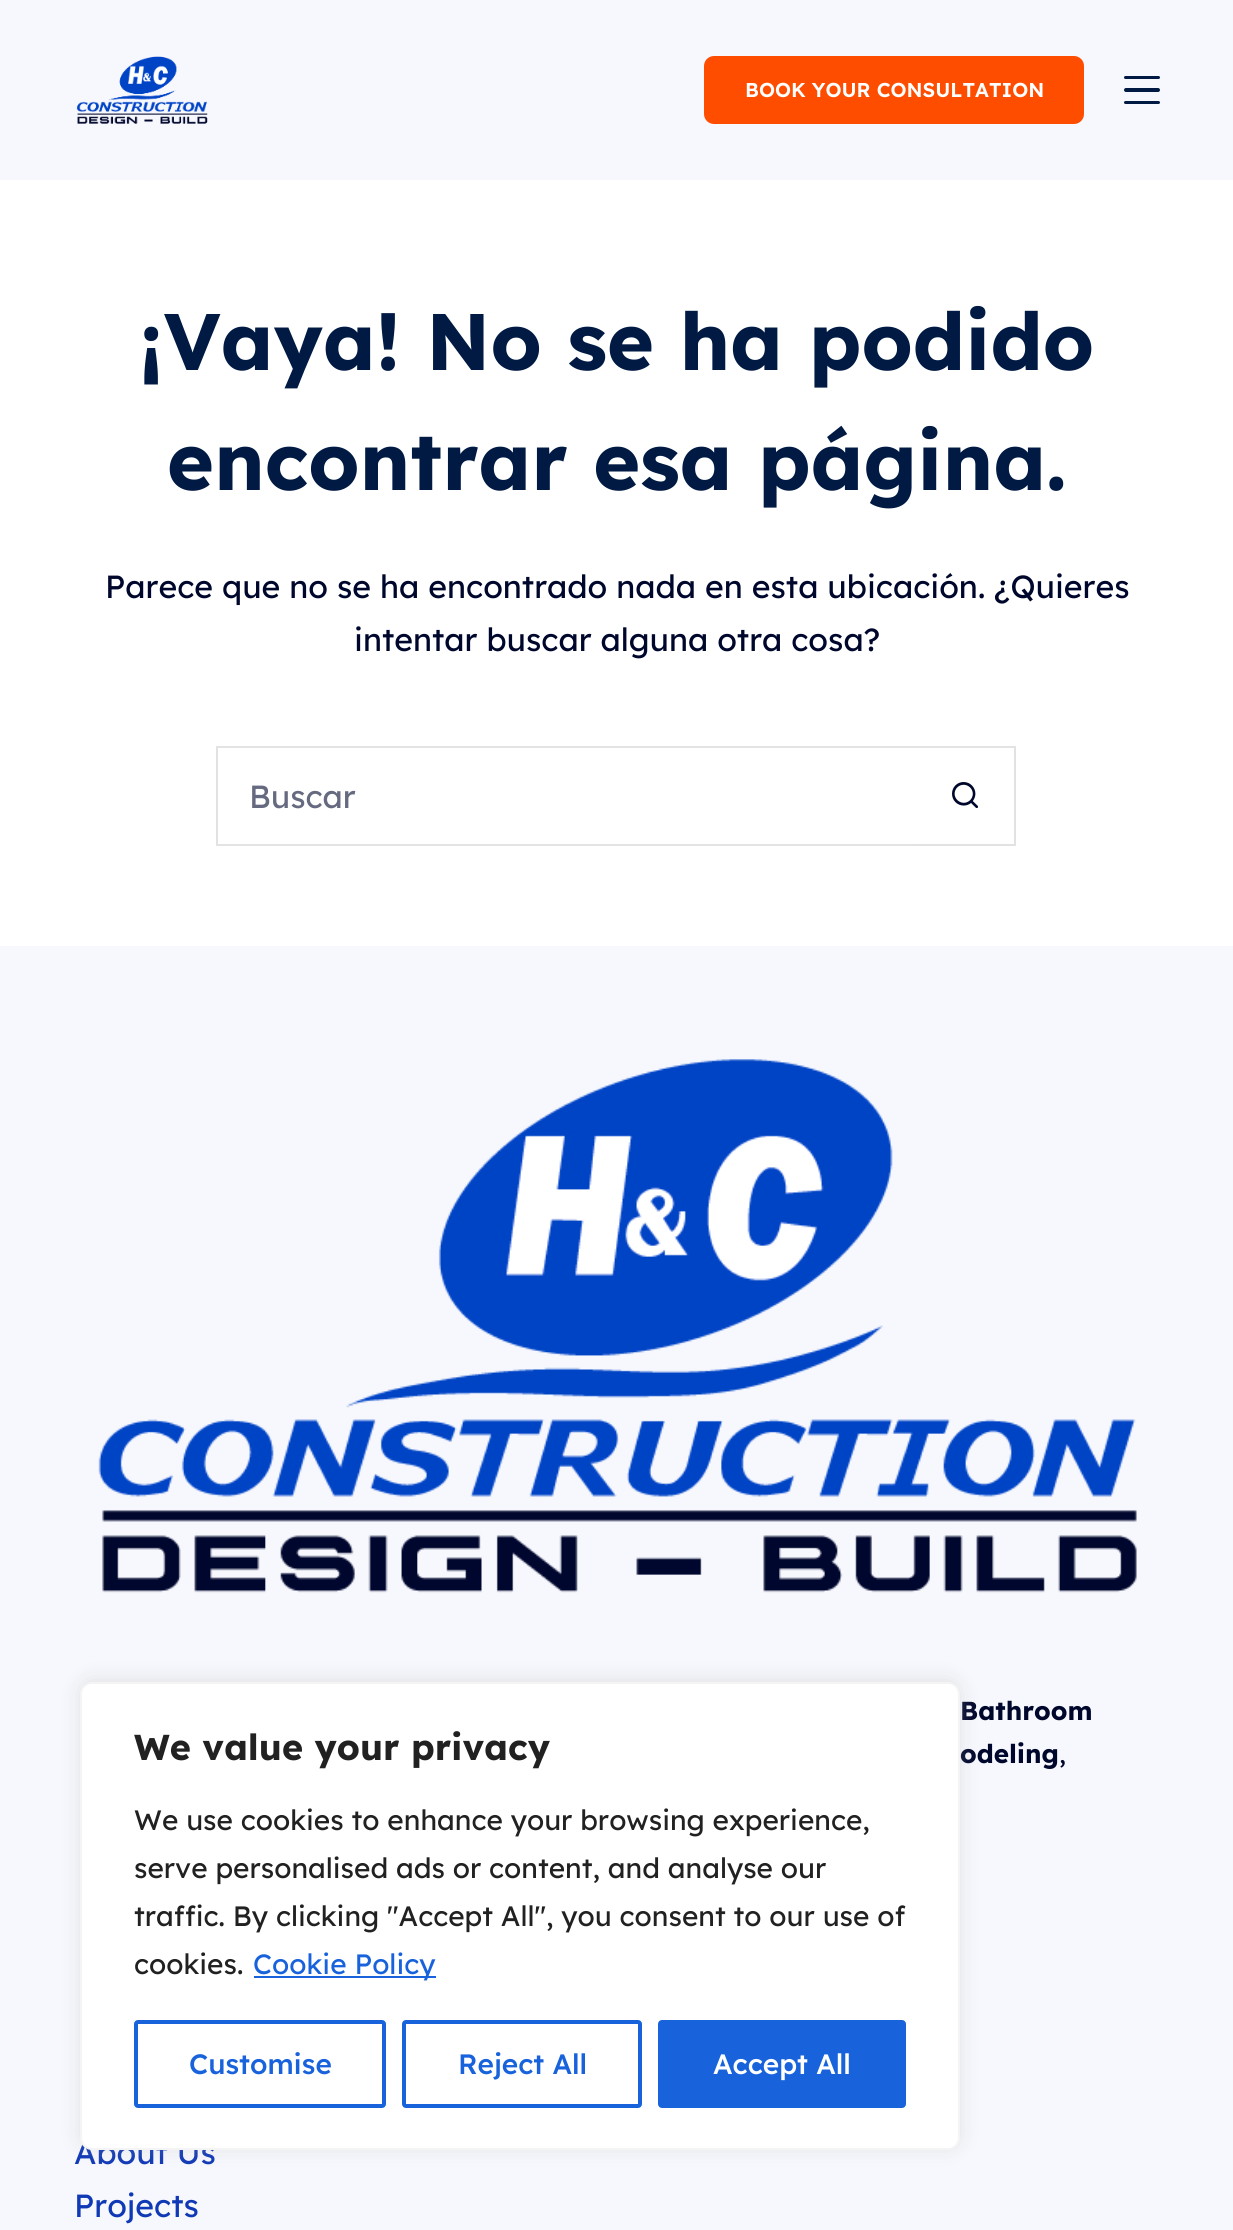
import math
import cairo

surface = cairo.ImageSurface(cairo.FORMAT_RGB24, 1233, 2230)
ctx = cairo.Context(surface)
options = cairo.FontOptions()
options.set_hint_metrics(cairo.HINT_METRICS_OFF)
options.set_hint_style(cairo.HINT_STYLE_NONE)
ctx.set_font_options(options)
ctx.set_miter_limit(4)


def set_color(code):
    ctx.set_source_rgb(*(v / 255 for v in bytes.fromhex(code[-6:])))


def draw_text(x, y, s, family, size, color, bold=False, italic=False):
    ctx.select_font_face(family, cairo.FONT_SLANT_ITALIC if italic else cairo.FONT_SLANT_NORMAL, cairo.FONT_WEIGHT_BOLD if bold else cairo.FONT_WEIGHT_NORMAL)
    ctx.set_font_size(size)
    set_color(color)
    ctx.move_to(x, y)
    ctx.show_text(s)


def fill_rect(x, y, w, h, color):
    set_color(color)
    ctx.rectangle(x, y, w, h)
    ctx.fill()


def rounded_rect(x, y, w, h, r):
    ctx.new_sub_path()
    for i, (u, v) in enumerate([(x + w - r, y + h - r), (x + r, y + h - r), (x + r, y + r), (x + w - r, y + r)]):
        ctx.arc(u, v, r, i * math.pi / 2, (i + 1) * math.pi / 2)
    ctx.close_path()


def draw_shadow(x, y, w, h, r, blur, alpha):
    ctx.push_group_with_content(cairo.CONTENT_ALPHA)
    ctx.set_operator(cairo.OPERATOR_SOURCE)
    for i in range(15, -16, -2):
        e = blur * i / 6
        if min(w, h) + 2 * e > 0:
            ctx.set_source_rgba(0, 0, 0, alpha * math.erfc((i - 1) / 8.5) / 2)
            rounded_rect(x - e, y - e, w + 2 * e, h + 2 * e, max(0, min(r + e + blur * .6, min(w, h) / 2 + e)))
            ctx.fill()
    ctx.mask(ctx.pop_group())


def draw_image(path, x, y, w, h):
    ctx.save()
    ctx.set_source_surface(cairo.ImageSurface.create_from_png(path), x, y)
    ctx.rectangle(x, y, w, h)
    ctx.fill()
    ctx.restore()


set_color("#ffffff")
ctx.paint()
fill_rect(0, 0, 1233, 180, "#f7f8fd")
draw_image("assets/img1.png", 76, 56, 132, 68)
set_color("#ff4d00")
rounded_rect(704, 56, 380, 68, 10)
ctx.fill()
draw_text(745, 97, "BOOK YOUR CONSULTATION", "Lexend SemiBold", 20, "#ffffff")
set_color("#001a43")
rounded_rect(1124, 76, 36, 3, 1.5)
ctx.fill()
rounded_rect(1124, 88, 36, 4, 2)
ctx.fill()
rounded_rect(1124, 101, 36, 3, 1.5)
ctx.fill()
draw_text(139, 370, "¡Vaya! No se ha podido", "Lexend", 80, "#001a43", bold=True)
draw_text(167, 490, "encontrar esa página.", "Lexend", 80, "#001a43", bold=True)
draw_text(105, 598, "Parece que no se ha encontrado nada en esta ubicación. ¿Quieres", "Lexend", 32, "#00072c")
draw_text(354, 651, "intentar buscar alguna otra cosa?", "Lexend", 32, "#00072c")
set_color("#e1e3e4")
ctx.new_path()
ctx.move_to(216, 746)
ctx.line_to(916, 746)
ctx.line_to(916, 748)
ctx.line_to(218, 748)
ctx.close_path()
ctx.fill()
ctx.new_path()
ctx.move_to(916, 846)
ctx.line_to(216, 846)
ctx.line_to(218, 844)
ctx.line_to(916, 844)
ctx.close_path()
ctx.fill()
ctx.set_source_rgba(0.404, 0.443, 0.471, 0.2)
ctx.new_path()
ctx.move_to(216, 846)
ctx.line_to(216, 746)
ctx.line_to(218, 748)
ctx.line_to(218, 844)
ctx.close_path()
ctx.fill()
draw_text(249, 808, "Buscar", "Lexend", 32, "#666a80")
set_color("#e1e3e4")
ctx.new_path()
ctx.move_to(916, 746)
ctx.line_to(1016, 746)
ctx.line_to(1014, 748)
ctx.line_to(916, 748)
ctx.close_path()
ctx.fill()
ctx.set_source_rgba(0.404, 0.443, 0.471, 0.2)
ctx.new_path()
ctx.move_to(1016, 746)
ctx.line_to(1016, 846)
ctx.line_to(1014, 844)
ctx.line_to(1014, 748)
ctx.close_path()
ctx.fill()
ctx.new_path()
ctx.move_to(1016, 846)
ctx.line_to(916, 846)
ctx.line_to(916, 844)
ctx.line_to(1014, 844)
ctx.close_path()
ctx.fill()
draw_image("assets/img2.png", 952, 782, 26, 26)
fill_rect(0, 946, 1233, 1284, "#f7f8fd")
draw_image("assets/img3.png", 98, 1059, 1039, 534)
draw_text(960, 1720, "Bathroom", "Lexend", 26, "#00072c", bold=True)
draw_text(960, 1763, "odeling", "Lexend", 26, "#00072c", bold=True)
draw_text(1059, 1763, ",", "Lexend", 26, "#00072c")
draw_text(74, 2164, "About Us", "Lexend", 32, "#1039b5")
draw_text(74, 2217, "Projects", "Lexend", 32, "#1039b5")
set_color("#acabab")
draw_shadow(80, 1680, 880, 468, 12, 10, 0.3)
set_color("#ffffff")
rounded_rect(81, 1683, 878, 466, 11)
ctx.fill_preserve()
set_color("#f4f4f4")
ctx.stroke()
draw_text(134, 1760, "We value your privacy", "Lexend", 36, "#212121", bold=True)
draw_text(134, 1830, "We use cookies to enhance your browsing experience,", "Lexend", 28, "#212121")
draw_text(134, 1878, "serve personalised ads or content, and analyse our", "Lexend", 28, "#212121")
draw_text(134, 1926, "traffic. By clicking \"Accept All\", you consent to our use of", "Lexend", 28, "#212121")
draw_text(134, 1974, "cookies.", "Lexend", 28, "#212121")
fill_rect(254, 1976, 182, 2, "#1863dc")
draw_text(253, 1974, "Cookie Policy", "Lexend", 28, "#1863dc")
rounded_rect(136, 2022, 248, 84, 2)
ctx.set_line_width(4)
ctx.stroke()
draw_text(189, 2074, "Customise", "Lexend Medium", 28, "#1863dc")
rounded_rect(404, 2022, 236, 84, 2)
ctx.stroke()
draw_text(458, 2074, "Reject All", "Lexend Medium", 28, "#1863dc")
rounded_rect(660, 2022, 244, 84, 2)
ctx.fill_preserve()
ctx.stroke()
draw_text(713, 2074, "Accept All", "Lexend Medium", 28, "#ffffff")
surface.write_to_png("output.png")
